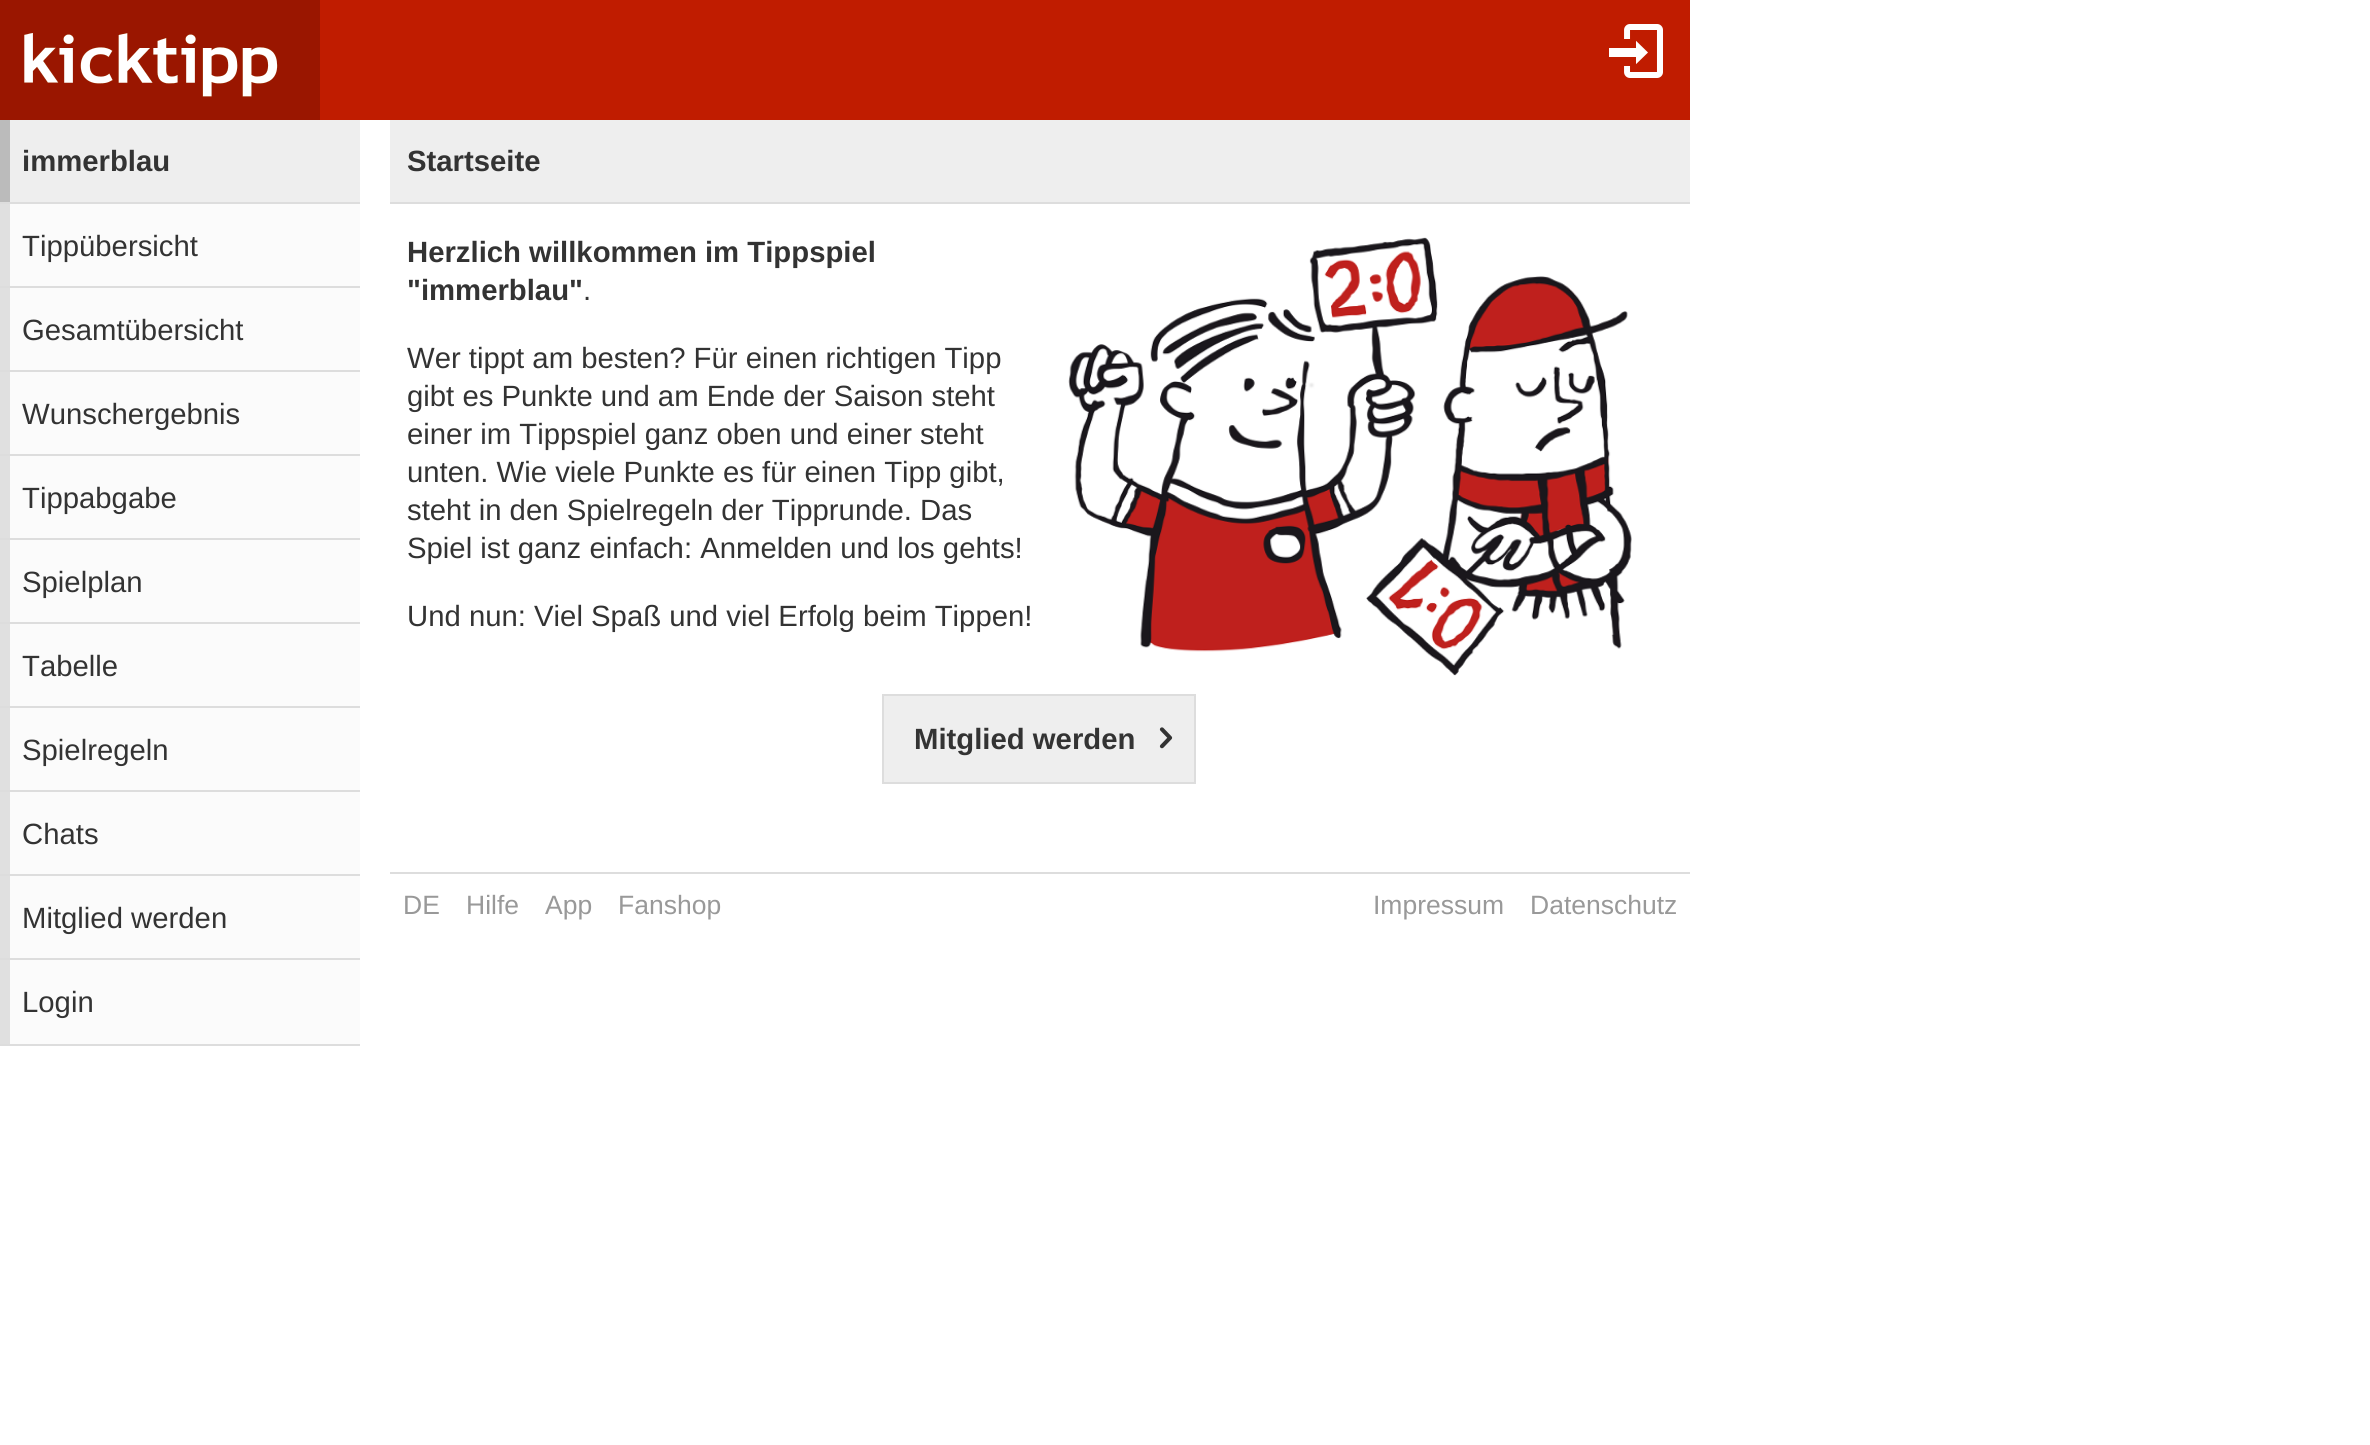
import math
import cairo

surface = cairo.ImageSurface(cairo.FORMAT_RGB24, 2370, 1445)
ctx = cairo.Context(surface)
options = cairo.FontOptions()
options.set_hint_metrics(cairo.HINT_METRICS_OFF)
options.set_hint_style(cairo.HINT_STYLE_NONE)
ctx.set_font_options(options)
ctx.set_miter_limit(4)


def set_color(code):
    ctx.set_source_rgb(*(v / 255 for v in bytes.fromhex(code[-6:])))


def draw_text(x, y, s, family, size, color, bold=False, italic=False):
    ctx.select_font_face(family, cairo.FONT_SLANT_ITALIC if italic else cairo.FONT_SLANT_NORMAL, cairo.FONT_WEIGHT_BOLD if bold else cairo.FONT_WEIGHT_NORMAL)
    ctx.set_font_size(size)
    set_color(color)
    ctx.move_to(x, y)
    ctx.show_text(s)


def fill_rect(x, y, w, h, color):
    set_color(color)
    ctx.rectangle(x, y, w, h)
    ctx.fill()


def draw_image(path, x, y, w, h):
    ctx.save()
    ctx.set_source_surface(cairo.ImageSurface.create_from_png(path), x, y)
    ctx.rectangle(x, y, w, h)
    ctx.fill()
    ctx.restore()


set_color("#ffffff")
ctx.paint()
fill_rect(320, 0, 1370, 120, "#c01c00")
fill_rect(0, 0, 320, 120, "#9a1600")
draw_image("assets/img1.png", 24, 33, 254, 64)
draw_image("assets/img2.png", 1609, 24, 54, 54)
fill_rect(10, 204, 350, 840, "#fbfbfb")
fill_rect(0, 202, 360, 2, "#dddddd")
fill_rect(10, 120, 350, 82, "#eeeeee")
fill_rect(0, 120, 10, 82, "#bbbbbb")
draw_text(22, 171, "immerblau", "Liberation Sans", 29.3, "#333333", bold=True)
fill_rect(0, 286, 360, 2, "#dddddd")
fill_rect(0, 204, 10, 82, "#e0e0e0")
draw_text(22, 256, "Tippübersicht", "Liberation Sans", 29.3, "#333333")
fill_rect(0, 370, 360, 2, "#dddddd")
fill_rect(0, 288, 10, 82, "#e0e0e0")
draw_text(22, 340, "Gesamtübersicht", "Liberation Sans", 29.3, "#333333")
fill_rect(0, 454, 360, 2, "#dddddd")
fill_rect(0, 372, 10, 82, "#e0e0e0")
draw_text(22, 424, "Wunschergebnis", "Liberation Sans", 29.3, "#333333")
fill_rect(0, 538, 360, 2, "#dddddd")
fill_rect(0, 456, 10, 82, "#e0e0e0")
draw_text(22, 508, "Tippabgabe", "Liberation Sans", 29.3, "#333333")
fill_rect(0, 622, 360, 2, "#dddddd")
fill_rect(0, 540, 10, 82, "#e0e0e0")
draw_text(22, 592, "Spielplan", "Liberation Sans", 29.3, "#333333")
fill_rect(0, 706, 360, 2, "#dddddd")
fill_rect(0, 624, 10, 82, "#e0e0e0")
draw_text(22, 676, "Tabelle", "Liberation Sans", 29.3, "#333333")
fill_rect(0, 790, 360, 2, "#dddddd")
fill_rect(0, 708, 10, 82, "#e0e0e0")
draw_text(22, 760, "Spielregeln", "Liberation Sans", 29.3, "#333333")
fill_rect(0, 874, 360, 2, "#dddddd")
fill_rect(0, 792, 10, 82, "#e0e0e0")
draw_text(22, 844, "Chats", "Liberation Sans", 29.3, "#333333")
fill_rect(0, 958, 360, 2, "#dddddd")
fill_rect(0, 876, 10, 82, "#e0e0e0")
draw_text(22, 928, "Mitglied werden", "Liberation Sans", 29.3, "#333333")
fill_rect(0, 1044, 360, 2, "#dddddd")
fill_rect(0, 960, 10, 84, "#e0e0e0")
draw_text(22, 1012, "Login", "Liberation Sans", 29.3, "#333333")
fill_rect(390, 120, 1300, 82, "#eeeeee")
fill_rect(390, 202, 1300, 2, "#dddddd")
draw_text(407, 171, "Startseite", "Liberation Sans", 29.3, "#333333", bold=True)
draw_text(407, 262, "Herzlich willkommen im Tippspiel", "Liberation Sans", 29.3, "#333333", bold=True)
draw_text(407, 300, "\"immerblau\"", "Liberation Sans", 29.3, "#333333", bold=True)
draw_text(583, 300, ".", "Liberation Sans", 29.3, "#333333")
draw_image("assets/img3.png", 1068, 237, 564, 439)
draw_text(407, 368, "Wer tippt am besten? Für einen richtigen Tipp", "Liberation Sans", 29.3, "#333333")
draw_text(407, 406, "gibt es Punkte und am Ende der Saison steht", "Liberation Sans", 29.3, "#333333")
draw_text(407, 444, "einer im Tippspiel ganz oben und einer steht", "Liberation Sans", 29.3, "#333333")
draw_text(407, 482, "unten. Wie viele Punkte es für einen Tipp gibt,", "Liberation Sans", 29.3, "#333333")
draw_text(407, 520, "steht in den Spielregeln der Tipprunde. Das", "Liberation Sans", 29.3, "#333333")
draw_text(407, 558, "Spiel ist ganz einfach: Anmelden und los gehts!", "Liberation Sans", 29.3, "#333333")
draw_text(407, 626, "Und nun: Viel Spaß und viel Erfolg beim Tippen!", "Liberation Sans", 29.3, "#333333")
set_color("#eeeeee")
ctx.rectangle(883, 695, 312, 88)
ctx.fill_preserve()
set_color("#dddddd")
ctx.stroke()
draw_text(914, 749, "Mitglied werden", "Liberation Sans", 29.3, "#333333", bold=True)
draw_image("assets/img4.png", 1159, 727, 14, 22)
fill_rect(390, 872, 1300, 2, "#dddddd")
draw_text(403, 914, "DE", "Liberation Sans", 26.5, "#999999")
draw_text(466, 914, "Hilfe", "Liberation Sans", 26.5, "#999999")
draw_text(545, 914, "App", "Liberation Sans", 26.5, "#999999")
draw_text(618, 914, "Fanshop", "Liberation Sans", 26.5, "#999999")
draw_text(1373, 914, "Impressum", "Liberation Sans", 26.5, "#999999")
draw_text(1530, 914, "Datenschutz", "Liberation Sans", 26.5, "#999999")
surface.write_to_png("output.png")
